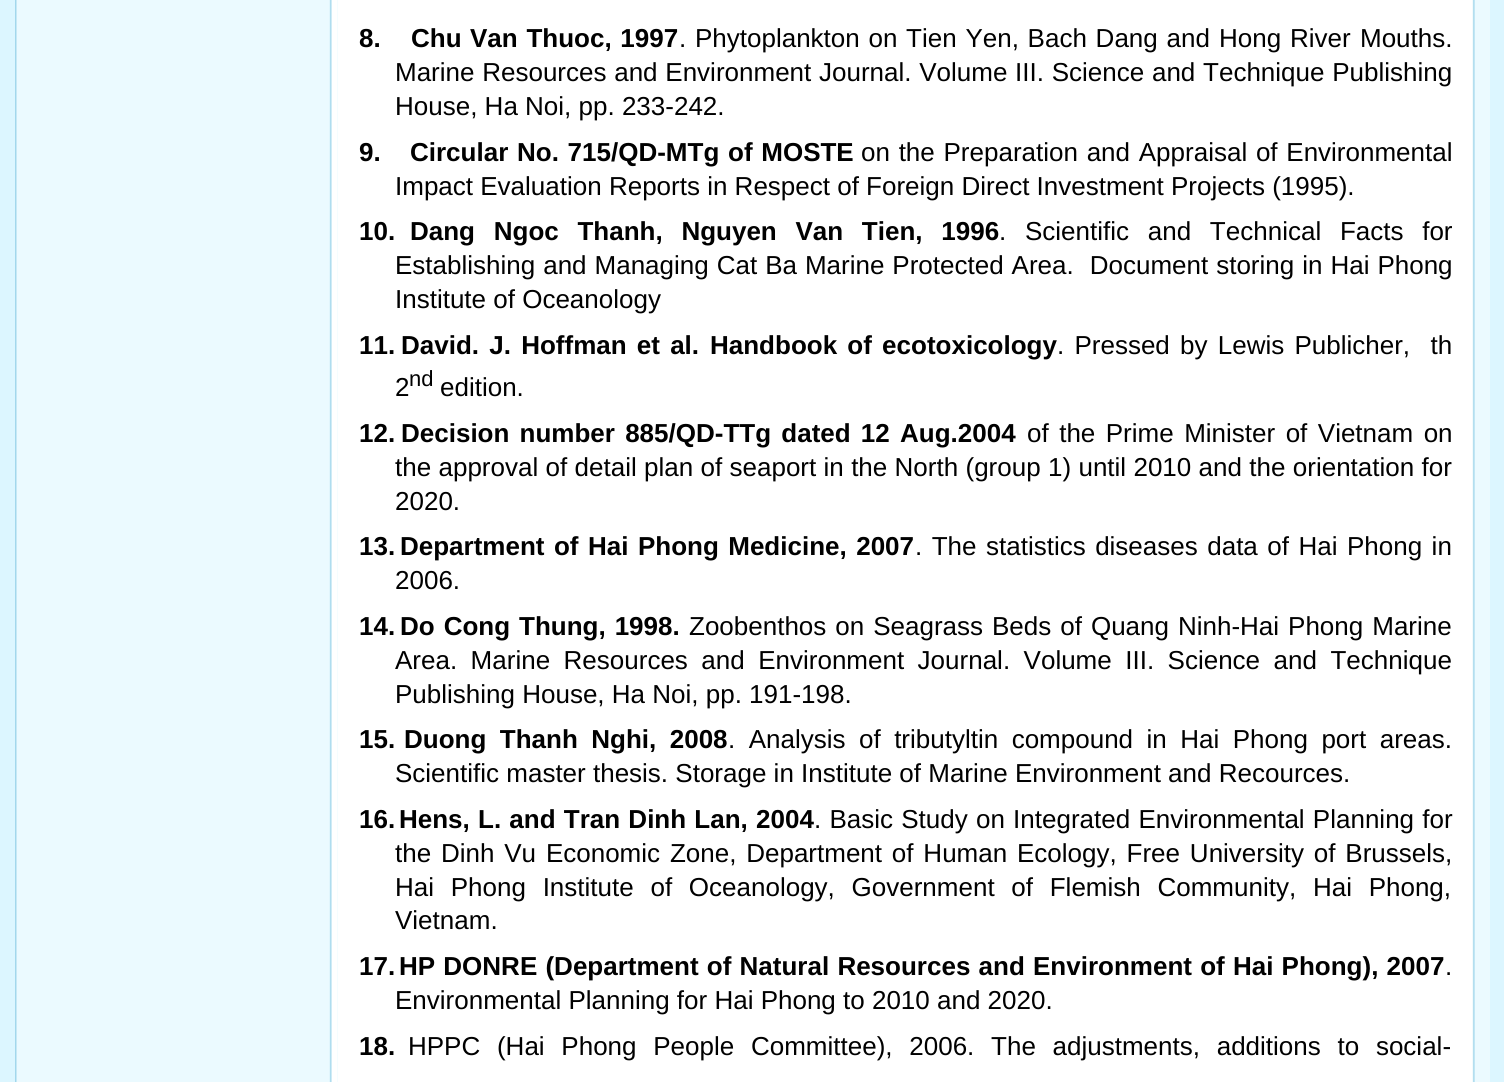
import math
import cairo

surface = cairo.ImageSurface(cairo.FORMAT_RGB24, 1504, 1082)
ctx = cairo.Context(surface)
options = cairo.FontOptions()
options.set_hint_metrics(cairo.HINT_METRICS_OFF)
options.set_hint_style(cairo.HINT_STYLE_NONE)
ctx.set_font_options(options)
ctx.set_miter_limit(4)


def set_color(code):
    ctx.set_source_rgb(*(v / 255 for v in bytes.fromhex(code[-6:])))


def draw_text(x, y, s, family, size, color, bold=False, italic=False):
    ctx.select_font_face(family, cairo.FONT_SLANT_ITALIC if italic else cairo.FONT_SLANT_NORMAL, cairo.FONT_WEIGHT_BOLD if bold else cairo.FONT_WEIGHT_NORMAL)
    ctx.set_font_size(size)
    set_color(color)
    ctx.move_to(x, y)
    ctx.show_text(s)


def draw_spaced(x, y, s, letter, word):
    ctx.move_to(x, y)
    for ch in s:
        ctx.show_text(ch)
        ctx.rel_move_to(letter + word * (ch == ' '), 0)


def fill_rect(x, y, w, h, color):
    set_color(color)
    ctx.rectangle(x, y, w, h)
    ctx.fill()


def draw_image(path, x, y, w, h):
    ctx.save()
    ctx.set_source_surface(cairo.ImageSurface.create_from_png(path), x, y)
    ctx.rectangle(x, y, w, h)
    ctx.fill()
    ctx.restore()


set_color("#dcf6ff")
ctx.paint()
fill_rect(337, 0, 1153, 1082, "#ebfaff")
draw_image("assets/img1.png", 15, 0, 323, 1082)
fill_rect(338, 0, 1129, 1082, "#ffffff")
draw_text(359, 47, "8.", "Liberation Sans", 26, "#000000", bold=True)
draw_text(411, 47, "Chu", "Liberation Sans", 26, "#000000", bold=True)
draw_spaced(470, 47, "Van Thuoc, 1997", 0, 1.5)
ctx.select_font_face("Liberation Sans")
draw_spaced(679, 47, ". Phytoplankton on Tien Yen, Bach Dang and", 0, 1.5)
draw_text(1219, 47, "Hong", "Liberation Sans", 26, "#000000")
draw_text(1290, 47, "River", "Liberation Sans", 26, "#000000")
draw_text(1360, 47, "Mouths.", "Liberation Sans", 26, "#000000")
draw_spaced(395, 81, "Marine Resources and Environment Journal. Volume III. Science and Technique Publishing", 0, 0.5)
draw_text(395, 115, "House, Ha Noi, pp. 233-242.", "Liberation Sans", 26, "#000000")
draw_text(359, 161, "9.", "Liberation Sans", 26, "#000000", bold=True)
draw_spaced(410, 161, "Circular No. 715/QD-MTg of MOSTE", 0, 1.5)
ctx.select_font_face("Liberation Sans")
draw_spaced(861, 161, "on the Preparation and Appraisal of Environmental", 0, 1.5)
draw_text(395, 195, "Impact Evaluation Reports in Respect of Foreign Direct Investment Projects (1995).", "Liberation Sans", 26, "#000000")
draw_text(359, 240, "10.", "Liberation Sans", 26, "#000000", bold=True)
draw_spaced(410, 240, "Dang Ngoc Thanh, Nguyen Van Tien, 1996", 0, 11.5)
draw_text(999, 240, ".", "Liberation Sans", 26, "#000000")
draw_spaced(1025, 240, "Scientific and Technical Facts for", 0, 11.5)
draw_spaced(395, 274, "Establishing and Managing Cat Ba Marine Protected Area.  Document storing in Hai Phong", 0, 0.75)
draw_text(395, 308, "Institute of Oceanology", "Liberation Sans", 26, "#000000")
draw_text(359, 354, "11.", "Liberation Sans", 26, "#000000", bold=True)
draw_spaced(401, 354, "David. J. Hoffman et al.", 0, 3)
draw_spaced(710, 354, "Handbook of ecotoxicology", 0, 3)
ctx.select_font_face("Liberation Sans")
draw_spaced(1057, 354, ". Pressed by Lewis Publicher,  th", 0, 3)
draw_text(395, 396, "2", "Liberation Sans", 26, "#000000")
draw_text(409, 386, "nd", "Liberation Sans", 22, "#000000")
draw_text(440, 396, "edition.", "Liberation Sans", 26, "#000000")
draw_text(359, 442, "12.", "Liberation Sans", 26, "#000000", bold=True)
draw_spaced(401, 442, "Decision number 885/QD-TTg dated 12 Aug.2004", 0, 3)
ctx.select_font_face("Liberation Sans")
draw_spaced(1027, 442, "of the Prime Minister of Vietnam on", 0, 3.25)
draw_spaced(395, 476, "the approval of detail plan of seaport in the North (group 1) until 2010 and the orientation for", 0, 0.1)
draw_text(395, 510, "2020.", "Liberation Sans", 26, "#000000")
draw_text(359, 555, "13.", "Liberation Sans", 26, "#000000", bold=True)
draw_spaced(400, 555, "Department of Hai Phong Medicine, 2007", 0, 2.25)
ctx.select_font_face("Liberation Sans")
draw_spaced(915, 555, ". The statistics diseases data of Hai Phong in", 0, 2.25)
draw_text(395, 589, "2006.", "Liberation Sans", 26, "#000000")
draw_text(359, 635, "14.", "Liberation Sans", 26, "#000000", bold=True)
draw_spaced(400, 635, "Do Cong Thung, 1998.", 0, 1.75)
ctx.select_font_face("Liberation Sans")
draw_spaced(689, 635, "Zoobenthos on Seagrass Beds of Quang Ninh-Hai Phong Marine", 0, 1.75)
draw_spaced(395, 669, "Area. Marine Resources and Environment Journal. Volume III. Science and Technique", 0, 6.25)
draw_text(395, 703, "Publishing House, Ha Noi, pp. 191-198.", "Liberation Sans", 26, "#000000")
draw_text(359, 748, "15.", "Liberation Sans", 26, "#000000", bold=True)
draw_spaced(404, 748, "Duong Thanh Nghi, 2008", 0, 6.25)
ctx.select_font_face("Liberation Sans")
draw_spaced(728, 748, ". Analysis of tributyltin compound in Hai Phong port areas.", 0, 6.25)
draw_text(395, 782, "Scientific master thesis. Storage in Institute of Marine Environment and Recources.", "Liberation Sans", 26, "#000000")
draw_text(359, 828, "16.", "Liberation Sans", 26, "#000000", bold=True)
draw_spaced(399, 828, "Hens, L. and Tran Dinh Lan, 2004", 0, 1)
ctx.select_font_face("Liberation Sans")
draw_spaced(814, 828, ". Basic Study on Integrated Environmental Planning for", 0, 1)
draw_spaced(395, 862, "the Dinh Vu Economic Zone, Department of Human Ecology, Free University of Brussels,", 0, 2.6)
draw_spaced(395, 896, "Hai Phong Institute of Oceanology, Government of Flemish Community, Hai Phong,", 0, 9.5)
draw_text(395, 929, "Vietnam.", "Liberation Sans", 26, "#000000")
draw_text(359, 975, "17.", "Liberation Sans", 26, "#000000", bold=True)
draw_spaced(399, 975, "HP DONRE (Department of Natural Resources and Environment of Hai Phong), 2007", 0, 1)
draw_text(1445, 975, ".", "Liberation Sans", 26, "#000000")
draw_text(395, 1009, "Environmental Planning for Hai Phong to 2010 and 2020.", "Liberation Sans", 26, "#000000")
draw_text(359, 1055, "18.", "Liberation Sans", 26, "#000000", bold=True)
ctx.select_font_face("Liberation Sans")
draw_spaced(408, 1055, "HPPC (Hai Phong People Committee), 2006. The adjustments, additions to social-", 0, 9.5)
draw_image("assets/img2.png", 1467, 0, 8, 1082)
surface.write_to_png("output.png")
